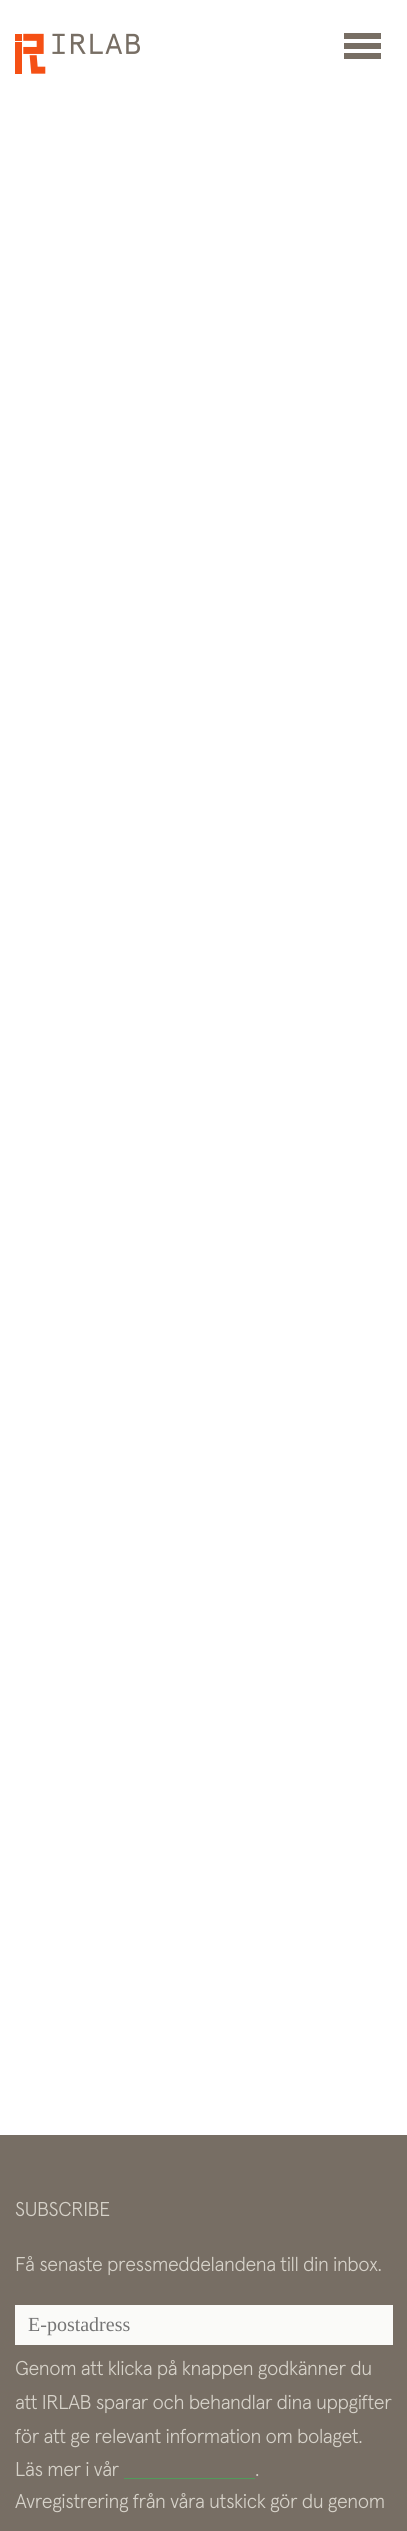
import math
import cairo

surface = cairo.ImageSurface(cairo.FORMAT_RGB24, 407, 2531)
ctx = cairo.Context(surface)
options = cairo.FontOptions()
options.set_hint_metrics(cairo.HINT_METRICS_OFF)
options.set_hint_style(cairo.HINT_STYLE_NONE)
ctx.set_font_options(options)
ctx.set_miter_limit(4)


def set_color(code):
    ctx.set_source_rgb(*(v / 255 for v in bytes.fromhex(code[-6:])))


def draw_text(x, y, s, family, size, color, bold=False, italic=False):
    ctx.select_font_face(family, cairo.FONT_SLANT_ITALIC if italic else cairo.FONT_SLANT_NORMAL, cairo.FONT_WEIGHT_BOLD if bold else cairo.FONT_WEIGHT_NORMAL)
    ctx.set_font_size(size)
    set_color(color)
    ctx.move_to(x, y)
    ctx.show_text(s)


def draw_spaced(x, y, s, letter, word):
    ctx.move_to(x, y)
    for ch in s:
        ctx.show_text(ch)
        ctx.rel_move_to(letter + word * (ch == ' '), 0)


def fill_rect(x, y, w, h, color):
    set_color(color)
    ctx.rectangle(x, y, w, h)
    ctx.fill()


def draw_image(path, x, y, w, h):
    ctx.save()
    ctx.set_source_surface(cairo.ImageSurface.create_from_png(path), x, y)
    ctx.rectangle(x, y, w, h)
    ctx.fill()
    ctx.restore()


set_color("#ffffff")
ctx.paint()
draw_image("assets/img1.png", 15, 33, 125, 41)
fill_rect(344, 33, 37, 6, "#776e64")
fill_rect(344, 43, 37, 6, "#776e64")
fill_rect(344, 53, 37, 6, "#776e64")
fill_rect(0, 2135, 407, 396, "#776e64")
ctx.select_font_face("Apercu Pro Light")
ctx.set_font_size(20)
set_color("#d6d2c9")
draw_spaced(15, 2216, "SUBSCRIBE", -0.45, 0)
draw_spaced(15, 2271, "Få senaste pressmeddelandena till din inbox.", -0.45, 0)
fill_rect(15, 2305, 378, 40, "#fafaf8")
draw_text(28, 2331, "E-postadress", "Liberation Serif", 20, "#757575")
ctx.select_font_face("Apercu Pro Light")
set_color("#d6d2c9")
draw_spaced(15, 2375, "Genom att klicka på knappen godkänner du", -0.45, 0)
draw_spaced(15, 2409, "att IRLAB sparar och behandlar dina uppgifter", -0.45, 0)
draw_spaced(15, 2443, "för att ge relevant information om bolaget.", -0.45, 0)
draw_spaced(15, 2476, "Läs mer i vår", -0.45, 0)
draw_spaced(255, 2476, ".", -0.45, 0)
fill_rect(124, 2478, 131, 1, "#519b5b")
set_color("#d6d2c9")
draw_spaced(15, 2508, "Avregistrering från våra utskick gör du genom", -0.45, 0)
surface.write_to_png("output.png")
